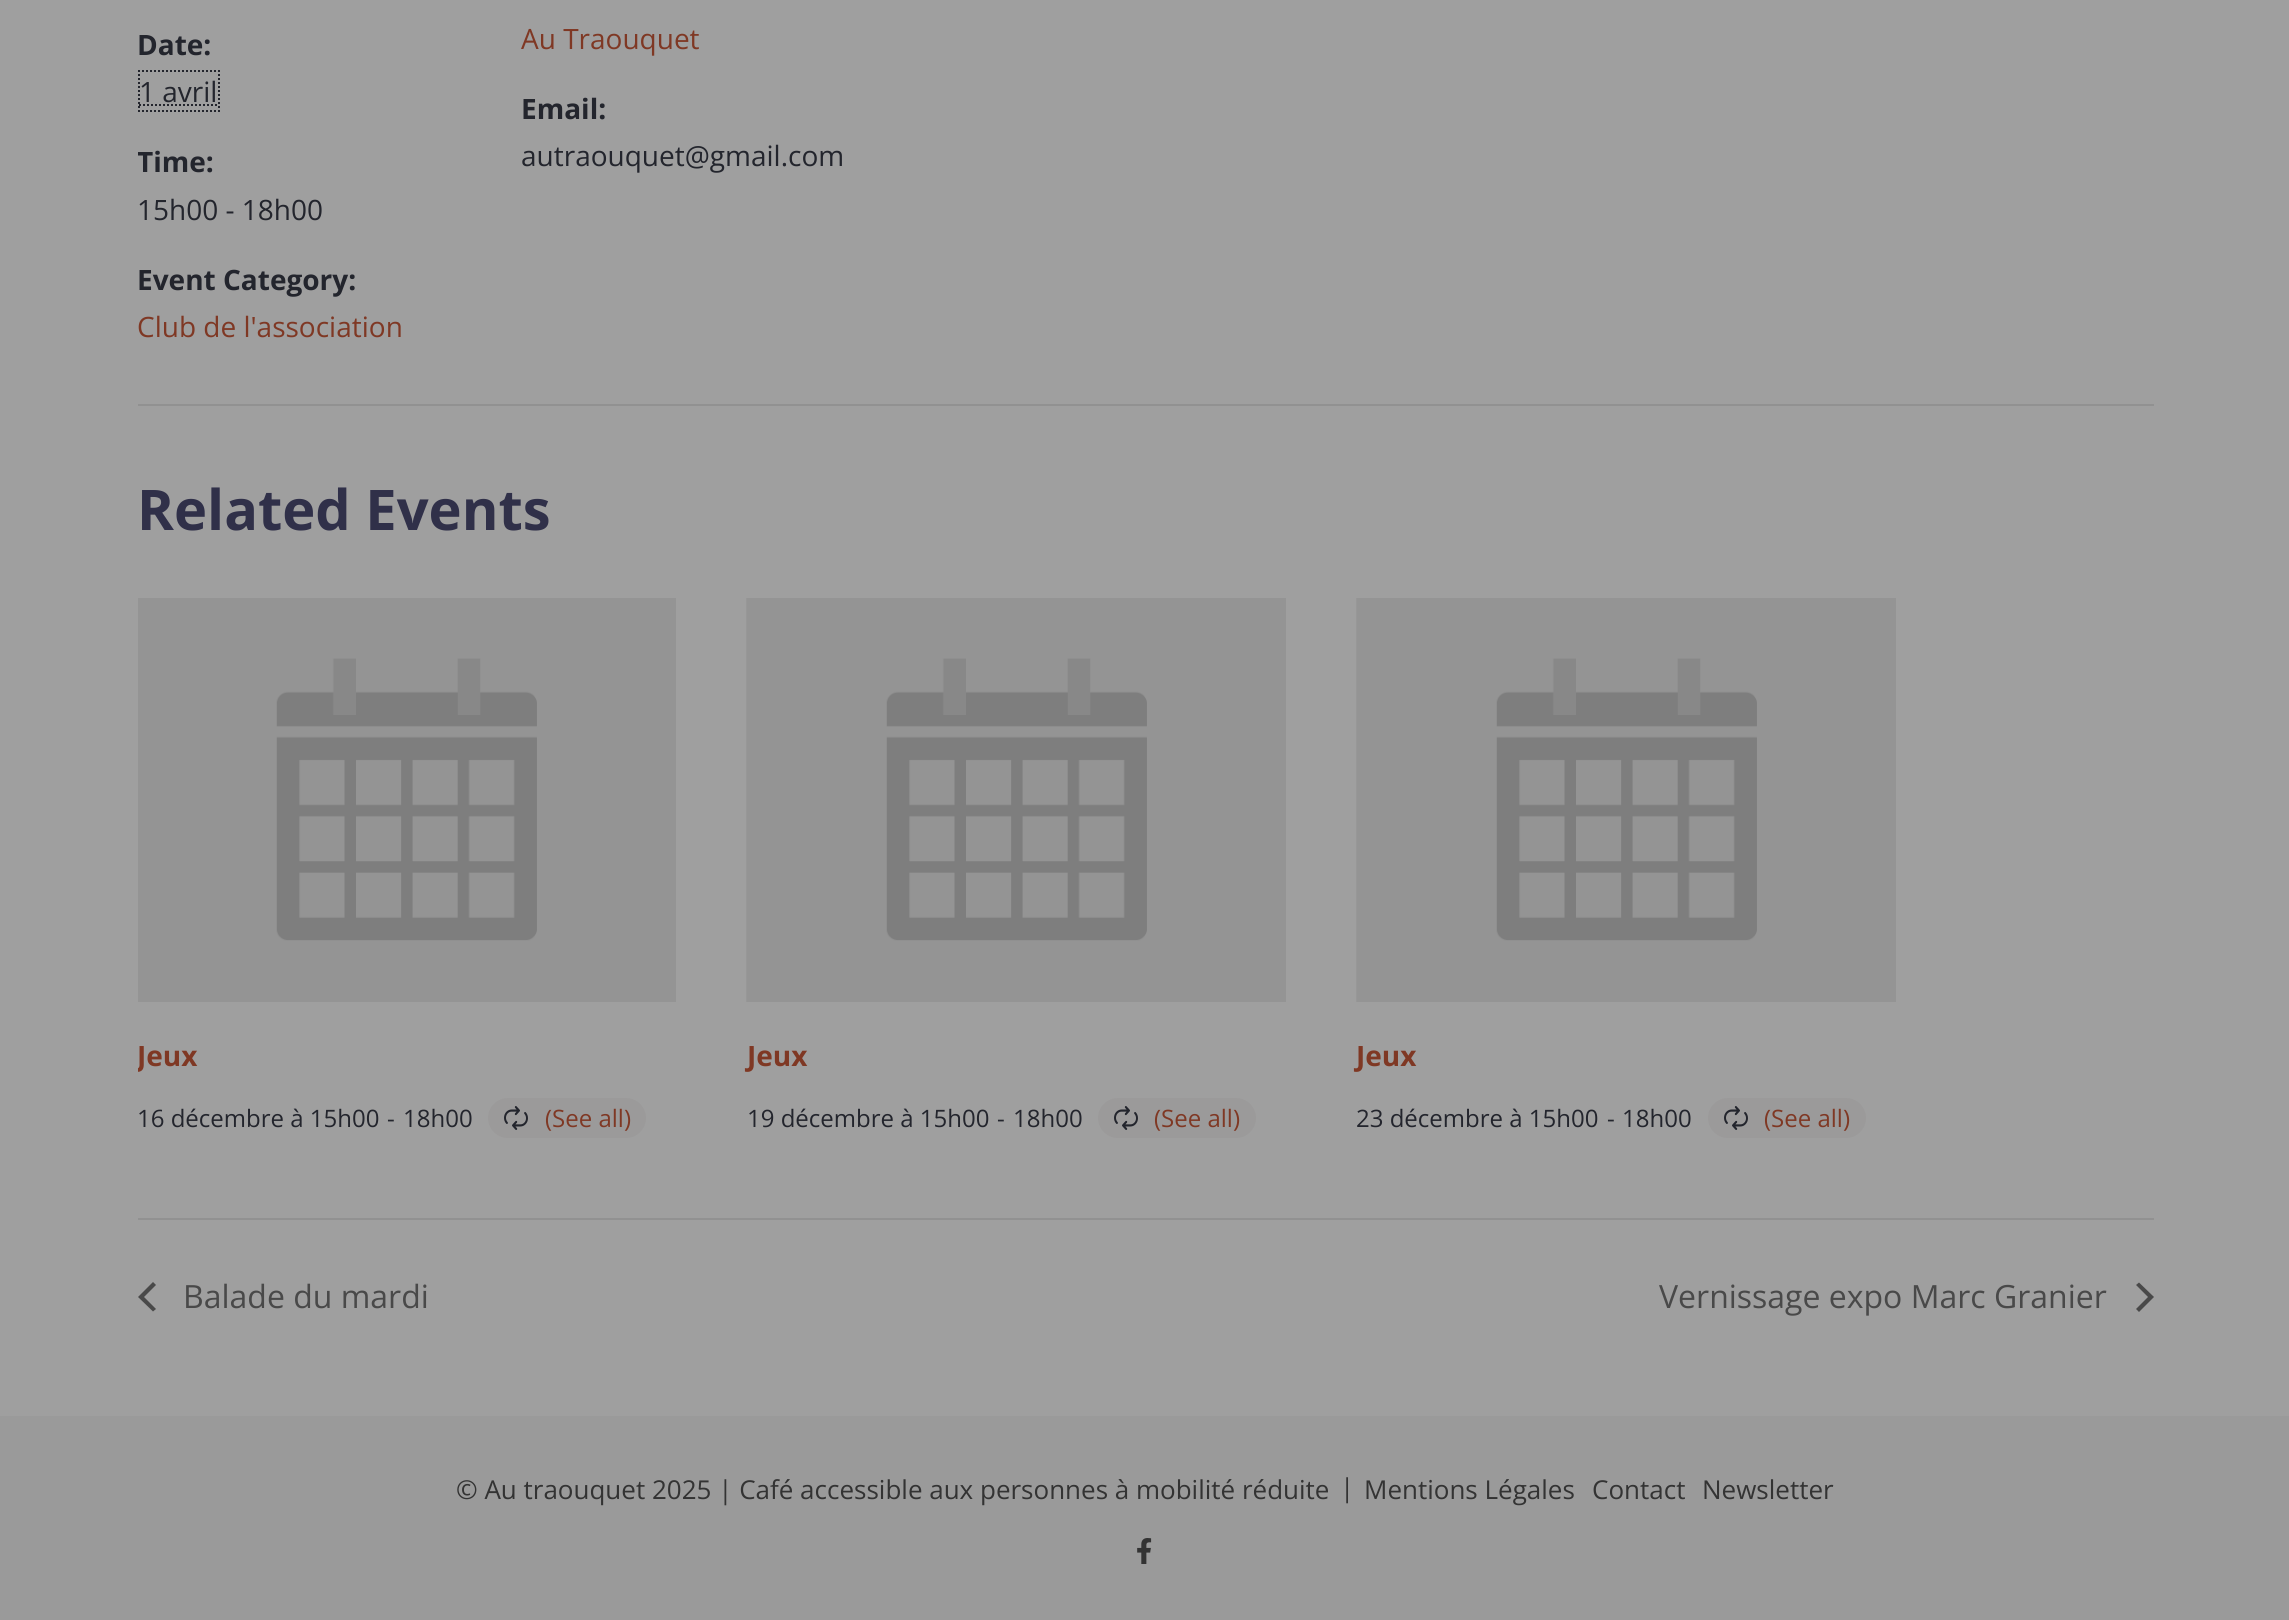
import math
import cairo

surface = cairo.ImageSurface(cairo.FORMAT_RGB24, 2289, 1620)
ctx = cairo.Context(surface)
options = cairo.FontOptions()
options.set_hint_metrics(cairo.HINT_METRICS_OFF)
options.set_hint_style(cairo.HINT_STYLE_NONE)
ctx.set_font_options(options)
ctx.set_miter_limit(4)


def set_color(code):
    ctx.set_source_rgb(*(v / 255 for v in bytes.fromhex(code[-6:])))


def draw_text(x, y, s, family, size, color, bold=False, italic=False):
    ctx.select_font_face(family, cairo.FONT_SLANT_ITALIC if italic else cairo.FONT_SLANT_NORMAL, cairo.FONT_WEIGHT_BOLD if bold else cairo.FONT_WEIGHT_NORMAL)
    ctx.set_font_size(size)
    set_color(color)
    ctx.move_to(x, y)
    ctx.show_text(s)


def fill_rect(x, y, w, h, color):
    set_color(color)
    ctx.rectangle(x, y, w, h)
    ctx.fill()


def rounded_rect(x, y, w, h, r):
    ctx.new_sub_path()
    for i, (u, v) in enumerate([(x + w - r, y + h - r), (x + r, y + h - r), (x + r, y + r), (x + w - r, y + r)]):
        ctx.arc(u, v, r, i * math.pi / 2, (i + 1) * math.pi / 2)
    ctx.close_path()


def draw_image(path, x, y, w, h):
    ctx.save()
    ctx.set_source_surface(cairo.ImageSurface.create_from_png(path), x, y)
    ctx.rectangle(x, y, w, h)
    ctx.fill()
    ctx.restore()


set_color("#9f9f9f")
ctx.paint()
draw_text(137, 55, "Date:", "Open Sans", 28, "#23252d", bold=True)
draw_text(139, 102, "1 avril", "Open Sans", 28, "#23252d")
ctx.new_path()
ctx.move_to(138, 71)
ctx.line_to(220, 71)
ctx.set_dash([2, 2])
ctx.stroke()
ctx.new_path()
ctx.move_to(219, 70)
ctx.line_to(219, 112)
ctx.stroke()
ctx.new_path()
ctx.move_to(138, 111)
ctx.line_to(220, 111)
ctx.stroke()
ctx.new_path()
ctx.move_to(139, 70)
ctx.line_to(139, 112)
ctx.stroke()
ctx.new_path()
ctx.move_to(139, 105)
ctx.line_to(217.5, 105)
ctx.stroke()
ctx.save()
ctx.rectangle(138, 0, 2016, 1218)
ctx.clip()
draw_text(137, 172, "Time:", "Open Sans", 28, "#23252d", bold=True)
ctx.restore()
draw_text(137, 220, "15h00 - 18h00", "Open Sans", 28, "#23252d")
draw_text(137, 290, "Event Category:", "Open Sans", 28, "#23252d", bold=True)
draw_text(137, 337, "Club de l'association", "Open Sans", 28, "#7f3824")
draw_text(521, 49, "Au Traouquet", "Open Sans", 28, "#7f3824")
draw_text(521, 119, "Email:", "Open Sans", 28, "#23252d", bold=True)
draw_text(521, 166, "autraouquet@gmail.com", "Open Sans", 28, "#23252d")
fill_rect(138, 404, 2016, 2, "#919191")
draw_text(137, 530, "Related Events", "Open Sans", 56, "#303049", bold=True)
draw_image("assets/img1.png", 138, 598, 538, 404)
ctx.save()
ctx.rectangle(138, 0, 2016, 1218)
ctx.clip()
draw_text(137, 1066, "Jeux", "Open Sans", 28, "#7f3824", bold=True)
ctx.restore()
draw_text(137, 1127, "16 décembre à 15h00", "Open Sans", 24, "#23252d")
draw_text(387, 1127, "-", "Open Sans", 24, "#23252d")
draw_text(403, 1127, "18h00", "Open Sans", 24, "#23252d")
set_color("#9b9a9a")
rounded_rect(488, 1098, 158, 40, 20)
ctx.fill()
draw_image("assets/img2.png", 504, 1106, 24, 24)
draw_text(545, 1127, "(See all)", "Open Sans", 24, "#7f3824")
draw_image("assets/img3.png", 746, 598, 540, 404)
draw_text(747, 1066, "Jeux", "Open Sans", 28, "#7f3824", bold=True)
draw_text(747, 1127, "19 décembre à 15h00", "Open Sans", 24, "#23252d")
draw_text(997, 1127, "-", "Open Sans", 24, "#23252d")
draw_text(1013, 1127, "18h00", "Open Sans", 24, "#23252d")
set_color("#9b9a9a")
rounded_rect(1098, 1098, 158, 40, 20)
ctx.fill()
draw_image("assets/img2.png", 1114, 1106, 24, 24)
draw_text(1154, 1127, "(See all)", "Open Sans", 24, "#7f3824")
draw_image("assets/img3.png", 1356, 598, 540, 404)
draw_text(1356, 1066, "Jeux", "Open Sans", 28, "#7f3824", bold=True)
draw_text(1356, 1127, "23 décembre à 15h00", "Open Sans", 24, "#23252d")
draw_text(1607, 1127, "-", "Open Sans", 24, "#23252d")
draw_text(1622, 1127, "18h00", "Open Sans", 24, "#23252d")
set_color("#9b9a9a")
rounded_rect(1708, 1098, 158, 40, 20)
ctx.fill()
draw_image("assets/img2.png", 1724, 1106, 24, 24)
draw_text(1764, 1127, "(See all)", "Open Sans", 24, "#7f3824")
fill_rect(138, 1218, 2016, 2, "#919191")
set_color("#494949")
ctx.new_path()
ctx.move_to(156, 1309)
ctx.line_to(153, 1311.5)
ctx.line_to(138, 1297)
ctx.line_to(153, 1282)
ctx.line_to(156, 1285)
ctx.line_to(144, 1297)
ctx.close_path()
ctx.fill()
draw_text(183, 1308, "Balade du mardi", "Open Sans", 32, "#494949")
draw_text(1659, 1308, "Vernissage expo Marc Granier", "Open Sans", 32, "#494949")
ctx.new_path()
ctx.move_to(2136, 1285)
ctx.line_to(2139, 1282.5)
ctx.line_to(2154, 1297)
ctx.line_to(2139, 1312)
ctx.line_to(2136, 1309)
ctx.line_to(2148, 1297)
ctx.close_path()
ctx.fill()
fill_rect(0, 1416, 2289, 204, "#9a9a9a")
draw_text(456, 1499, "© Au traouquet 2025 | Café accessible aux personnes à mobilité réduite", "Open Sans", 26, "#333333")
draw_text(1340, 1497, "|", "Open Sans", 26, "#333333")
draw_text(1364, 1499, "Mentions Légales", "Open Sans", 26, "#333333")
draw_text(1592, 1499, "Contact", "Open Sans", 26, "#333333")
draw_text(1702, 1499, "Newsletter", "Open Sans", 26, "#333333")
draw_image("assets/img4.png", 1137, 1538, 15, 26)
surface.write_to_png("output.png")
